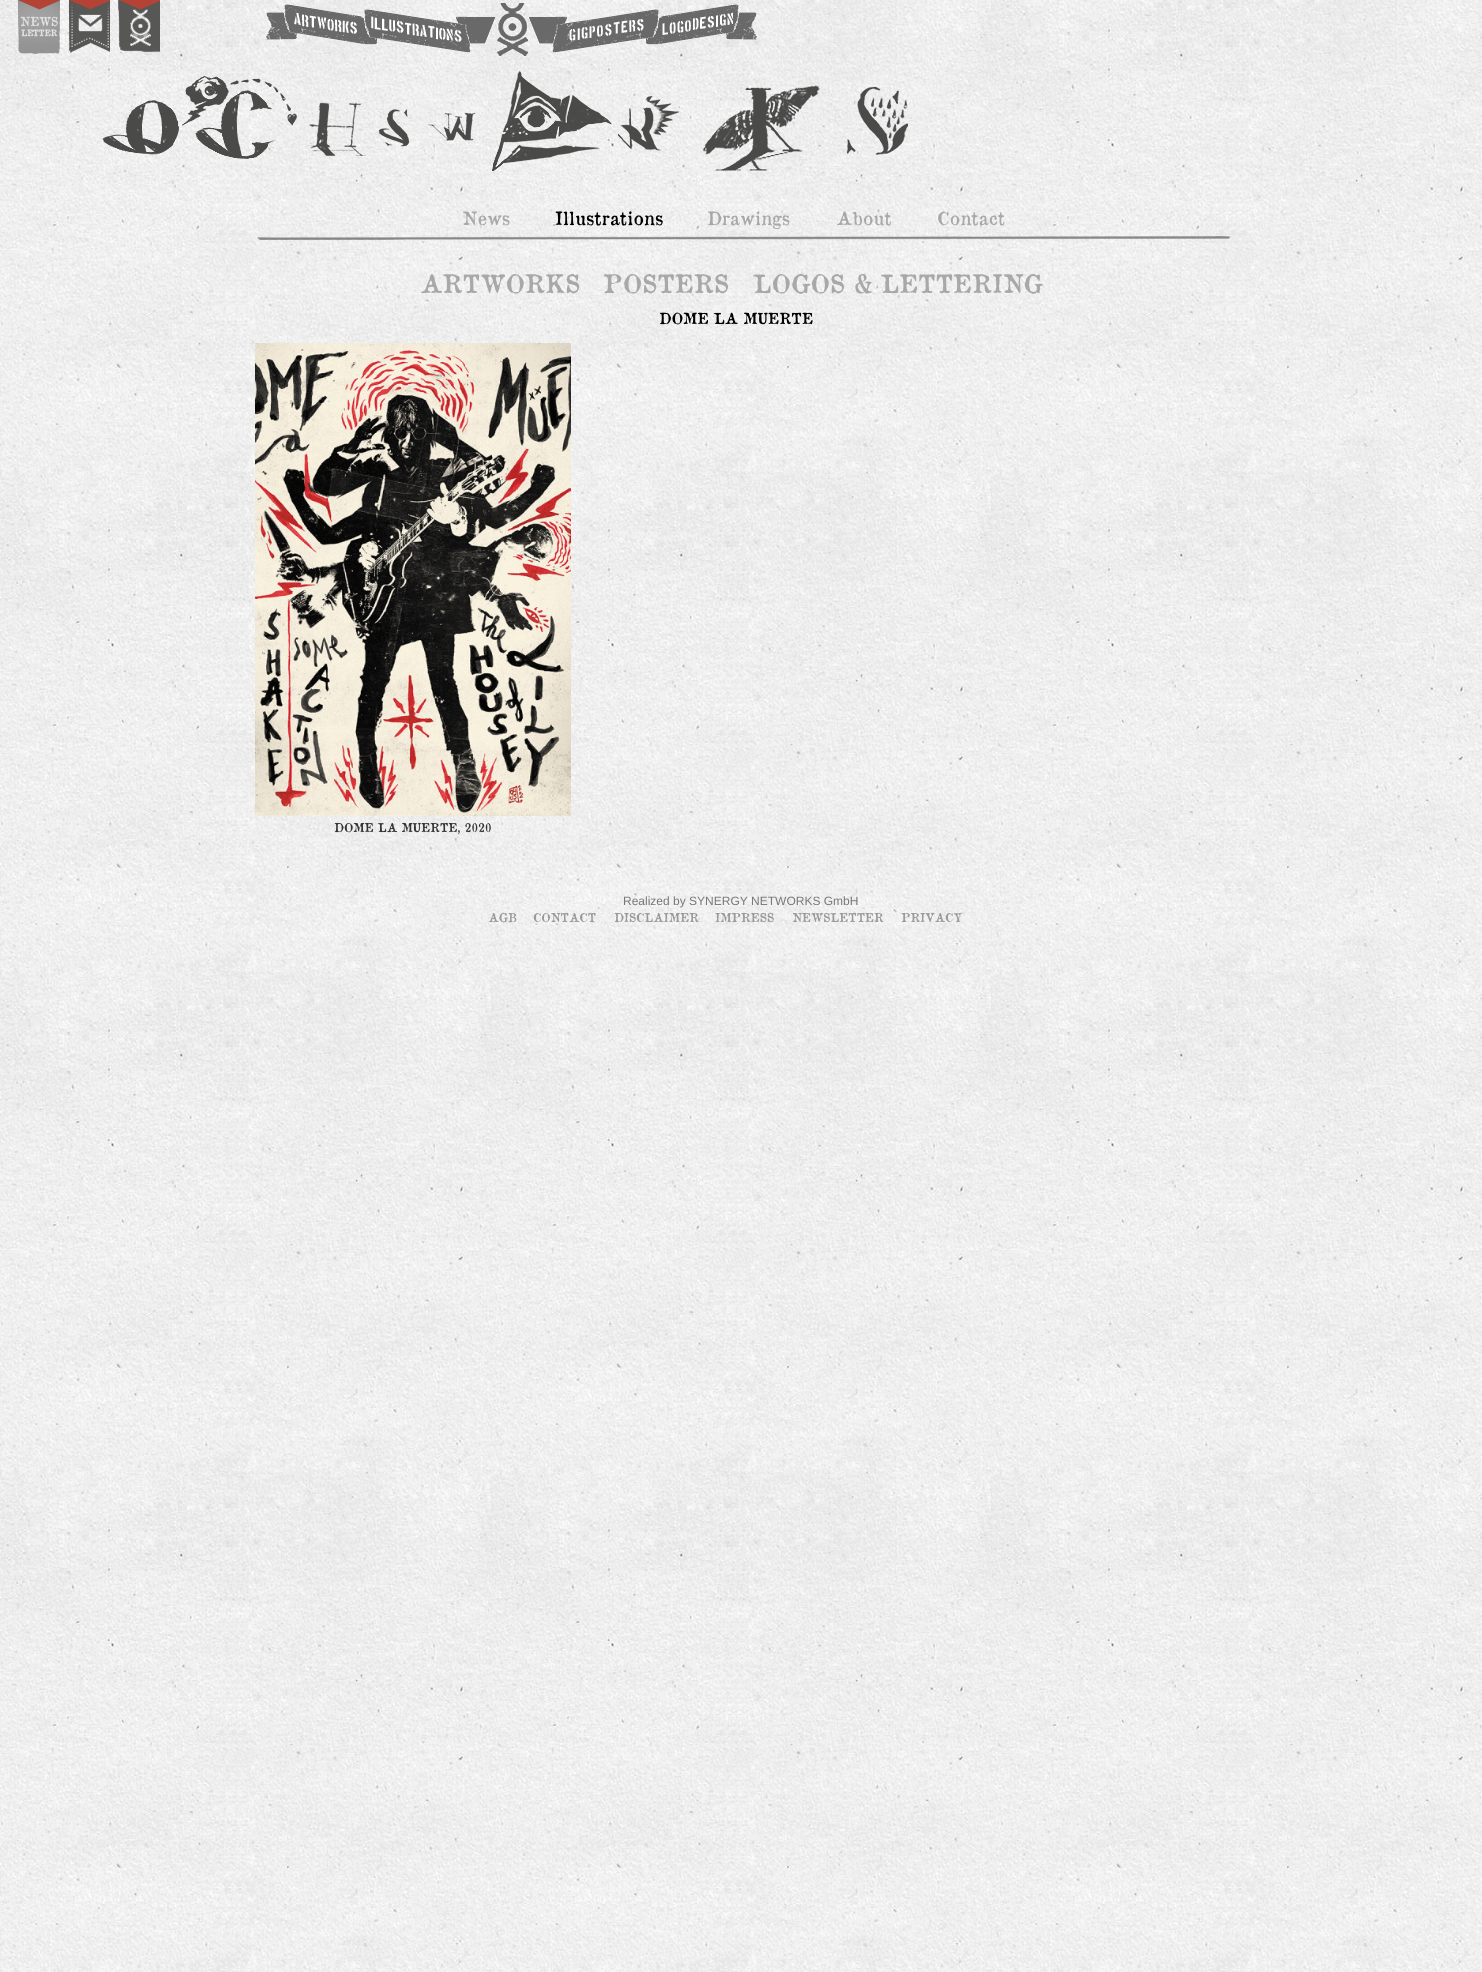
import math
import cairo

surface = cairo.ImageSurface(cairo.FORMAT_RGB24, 1482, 1972)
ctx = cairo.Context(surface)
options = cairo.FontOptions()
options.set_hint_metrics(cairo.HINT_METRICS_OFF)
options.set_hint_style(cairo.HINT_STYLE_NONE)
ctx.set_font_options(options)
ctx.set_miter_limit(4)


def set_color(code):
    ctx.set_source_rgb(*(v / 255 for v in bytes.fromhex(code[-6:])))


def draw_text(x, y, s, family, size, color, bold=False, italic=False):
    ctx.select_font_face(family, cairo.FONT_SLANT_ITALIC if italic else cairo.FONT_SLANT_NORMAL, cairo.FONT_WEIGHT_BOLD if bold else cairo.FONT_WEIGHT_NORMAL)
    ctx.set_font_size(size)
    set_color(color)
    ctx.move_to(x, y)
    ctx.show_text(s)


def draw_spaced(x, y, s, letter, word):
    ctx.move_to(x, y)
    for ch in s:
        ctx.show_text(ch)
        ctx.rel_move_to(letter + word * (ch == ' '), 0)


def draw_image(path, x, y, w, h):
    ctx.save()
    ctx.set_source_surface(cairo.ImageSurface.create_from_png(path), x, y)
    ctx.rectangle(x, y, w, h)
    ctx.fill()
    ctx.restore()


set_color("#ffffff")
ctx.paint()
draw_image("assets/img1.png", 0, 0, 1482, 1972)
draw_image("assets/img2.png", 102, 71, 807, 100)
draw_image("assets/img3.png", 18, 0, 42, 54)
draw_image("assets/img4.png", 69, 0, 41, 53)
draw_image("assets/img5.png", 118, 0, 42, 53)
draw_image("assets/img6.png", 266, 3, 491, 53)
draw_image("assets/img7.png", 257, 236, 974, 4)
ctx.select_font_face("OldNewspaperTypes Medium")
ctx.set_font_size(18)
set_color("#a8a8a8")
draw_spaced(462, 225, "News", 0.4, 0)
set_color("#000000")
draw_spaced(555, 225, "Illustrations", 0.4, 0)
set_color("#a8a8a8")
draw_spaced(707, 225, "Drawings", 0.4, 0)
draw_spaced(836, 225, "About", 0.4, 0)
draw_spaced(937, 225, "Contact", 0.4, 0)
draw_text(420, 293, "ARTWORKS", "OldNewspaperTypes Medium", 25, "#a8a8a8")
draw_text(603, 293, "POSTERS", "OldNewspaperTypes Medium", 25, "#a8a8a8")
draw_text(753, 293, "LOGOS & LETTERING", "OldNewspaperTypes Medium", 25, "#a8a8a8")
draw_text(659, 324, "DOME LA MUERTE", "OldNewspaperTypes Medium", 15, "#000000")
draw_image("assets/img8.png", 255, 343, 316, 473)
draw_text(334, 832, "DOME LA MUERTE, 2020", "OldNewspaperTypes Medium", 12, "#333333")
draw_text(623, 905, "Realized by SYNERGY NETWORKS GmbH", "Liberation Sans", 12, "#777777")
draw_text(488, 922, "AGB", "OldNewspaperTypes Medium", 12, "#999999")
draw_text(533, 922, "CONTACT", "OldNewspaperTypes Medium", 12, "#999999")
draw_text(614, 922, "DISCLAIMER", "OldNewspaperTypes Medium", 12, "#999999")
draw_text(715, 922, "IMPRESS", "OldNewspaperTypes Medium", 12, "#999999")
draw_text(792, 922, "NEWSLETTER", "OldNewspaperTypes Medium", 12, "#999999")
draw_text(901, 922, "PRIVACY", "OldNewspaperTypes Medium", 12, "#999999")
surface.write_to_png("output.png")
